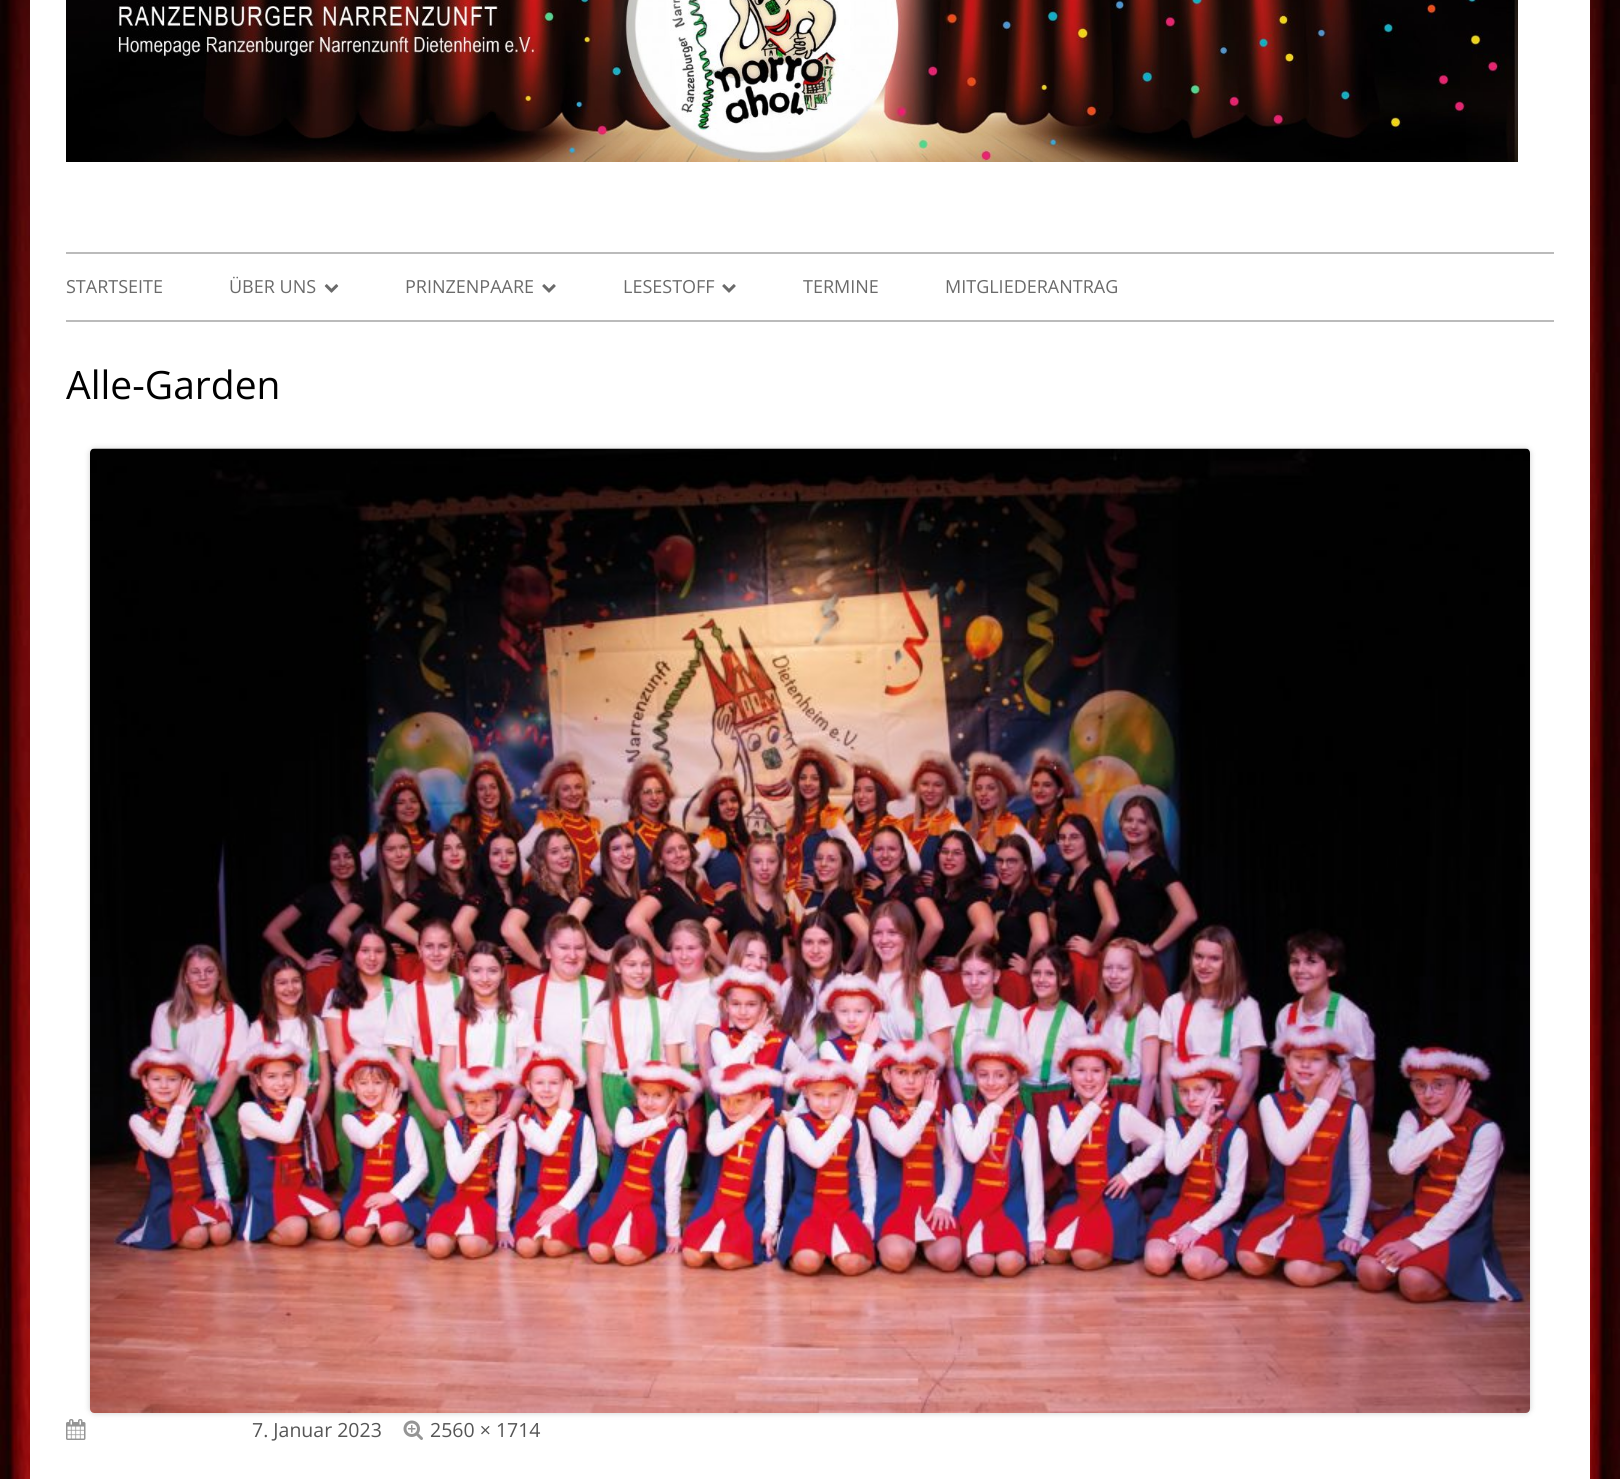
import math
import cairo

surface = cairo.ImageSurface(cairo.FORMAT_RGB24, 1620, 1479)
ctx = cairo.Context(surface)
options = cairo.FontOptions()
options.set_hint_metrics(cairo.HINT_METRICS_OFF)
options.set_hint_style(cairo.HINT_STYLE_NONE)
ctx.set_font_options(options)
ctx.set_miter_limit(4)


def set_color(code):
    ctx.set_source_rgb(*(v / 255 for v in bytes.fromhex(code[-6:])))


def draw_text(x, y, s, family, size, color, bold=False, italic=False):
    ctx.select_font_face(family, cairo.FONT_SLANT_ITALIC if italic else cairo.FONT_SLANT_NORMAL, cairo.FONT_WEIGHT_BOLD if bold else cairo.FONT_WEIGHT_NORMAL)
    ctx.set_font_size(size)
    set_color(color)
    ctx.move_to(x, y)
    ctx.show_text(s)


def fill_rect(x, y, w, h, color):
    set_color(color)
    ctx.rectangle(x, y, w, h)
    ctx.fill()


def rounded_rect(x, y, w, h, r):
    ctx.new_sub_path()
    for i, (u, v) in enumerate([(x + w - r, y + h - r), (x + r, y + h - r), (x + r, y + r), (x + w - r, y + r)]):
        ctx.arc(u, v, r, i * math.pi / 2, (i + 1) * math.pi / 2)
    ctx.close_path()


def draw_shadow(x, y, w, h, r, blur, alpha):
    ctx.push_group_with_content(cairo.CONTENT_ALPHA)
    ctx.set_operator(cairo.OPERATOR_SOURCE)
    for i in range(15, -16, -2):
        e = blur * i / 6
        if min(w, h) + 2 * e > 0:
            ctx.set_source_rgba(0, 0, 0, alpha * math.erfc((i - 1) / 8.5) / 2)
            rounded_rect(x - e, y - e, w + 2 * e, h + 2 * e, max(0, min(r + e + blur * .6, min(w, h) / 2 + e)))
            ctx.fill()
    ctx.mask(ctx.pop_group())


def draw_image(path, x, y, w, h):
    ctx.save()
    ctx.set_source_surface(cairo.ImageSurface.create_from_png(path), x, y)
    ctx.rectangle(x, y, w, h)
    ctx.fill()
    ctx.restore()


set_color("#ffffff")
ctx.paint()
draw_image("assets/img1.png", 0, 0, 1620, 1479)
fill_rect(30, 0, 1560, 1479, "#ffffff")
draw_image("assets/img2.png", 66, 0, 1452, 162)
fill_rect(66, 252, 1488, 2, "#bbbbbb")
fill_rect(66, 320, 1488, 2, "#bbbbbb")
draw_text(66, 293, "STARTSEITE", "Open Sans", 18, "#6a6a6a")
draw_text(229, 293, "ÜBER UNS", "Open Sans", 18, "#6a6a6a")
draw_image("assets/img3.png", 324, 284, 15, 9)
draw_text(405, 293, "PRINZENPAARE", "Open Sans", 18, "#6a6a6a")
draw_image("assets/img4.png", 542, 284, 14, 9)
draw_text(623, 293, "LESESTOFF", "Open Sans", 18, "#6a6a6a")
draw_image("assets/img4.png", 722, 284, 14, 9)
draw_text(803, 293, "TERMINE", "Open Sans", 18, "#6a6a6a")
draw_text(945, 293, "MITGLIEDERANTRAG", "Open Sans", 18, "#6a6a6a")
draw_text(66, 399, "Alle-Garden", "Open Sans", 39, "#000000")
set_color("#000000")
draw_shadow(90, 449, 1440, 964, 5, 3, 0.2)
draw_image("assets/img5.png", 90, 448, 1440, 965)
draw_image("assets/img6.png", 66, 1419, 20, 21)
draw_text(252, 1437, "7. Januar 2023", "Open Sans", 19.5, "#555555")
draw_image("assets/img7.png", 403, 1420, 20, 20)
draw_text(430, 1437, "2560 × 1714", "Open Sans", 19.5, "#555555")
surface.write_to_png("output.png")
